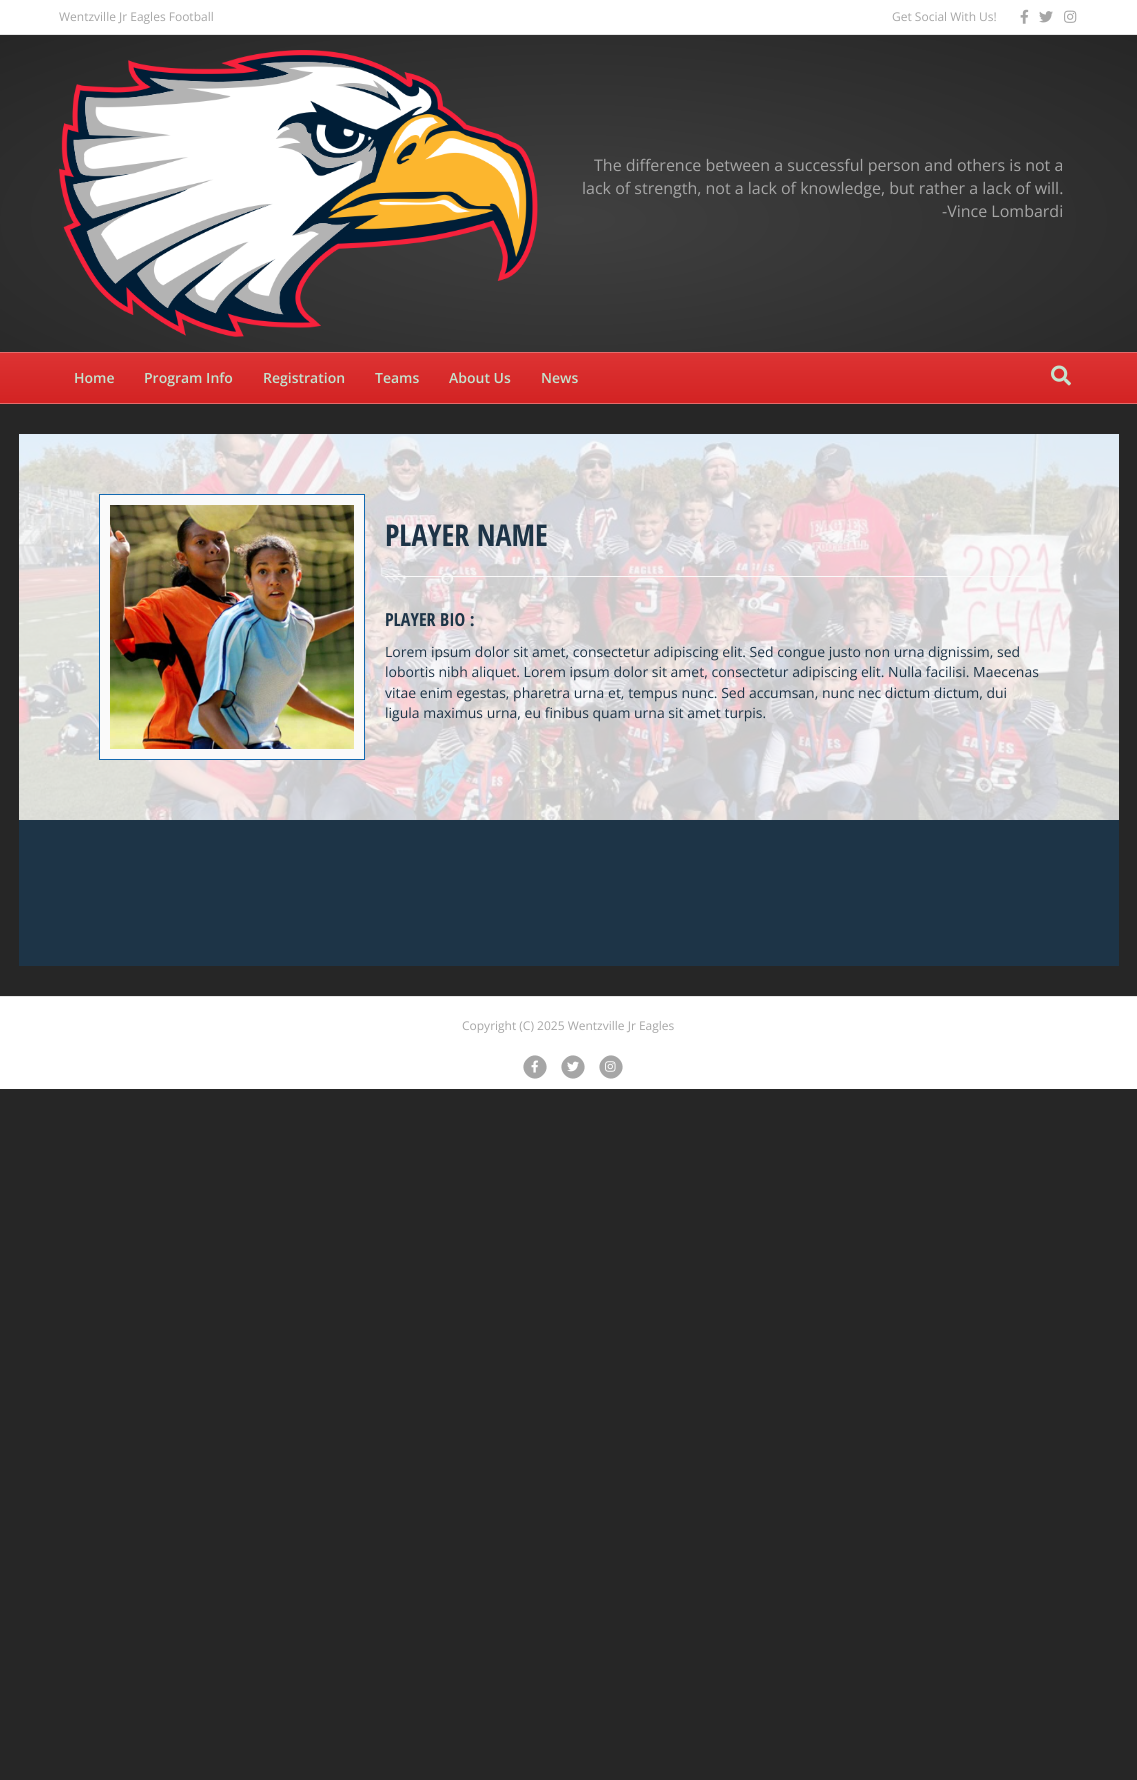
import math
import cairo

surface = cairo.ImageSurface(cairo.FORMAT_RGB24, 1137, 1780)
ctx = cairo.Context(surface)
options = cairo.FontOptions()
options.set_hint_metrics(cairo.HINT_METRICS_OFF)
options.set_hint_style(cairo.HINT_STYLE_NONE)
ctx.set_font_options(options)
ctx.set_miter_limit(4)


def set_color(code):
    ctx.set_source_rgb(*(v / 255 for v in bytes.fromhex(code[-6:])))


def draw_text(x, y, s, family, size, color, bold=False, italic=False):
    ctx.select_font_face(family, cairo.FONT_SLANT_ITALIC if italic else cairo.FONT_SLANT_NORMAL, cairo.FONT_WEIGHT_BOLD if bold else cairo.FONT_WEIGHT_NORMAL)
    ctx.set_font_size(size)
    set_color(color)
    ctx.move_to(x, y)
    ctx.show_text(s)


def fill_rect(x, y, w, h, color):
    set_color(color)
    ctx.rectangle(x, y, w, h)
    ctx.fill()


def draw_image(path, x, y, w, h):
    ctx.save()
    ctx.set_source_surface(cairo.ImageSurface.create_from_png(path), x, y)
    ctx.rectangle(x, y, w, h)
    ctx.fill()
    ctx.restore()


set_color("#262626")
ctx.paint()
fill_rect(0, 0, 1137, 34, "#ffffff")
fill_rect(0, 34, 1137, 1, "#e6e6e6")
draw_text(59, 21, "Wentzville Jr Eagles Football", "Open Sans", 12, "#a6a6a6")
draw_text(892, 21, "Get Social With Us!", "Open Sans", 12, "#a6a6a6")
draw_image("assets/img1.png", 1020, 9, 9, 15)
draw_image("assets/img2.png", 1039, 11, 14, 12)
draw_image("assets/img3.png", 1064, 10, 13, 13)
gradient = cairo.RadialGradient(0, 0, 0, 0, 0, 1)
gradient.set_matrix(cairo.Matrix(1 / 804, 0, 0, 1 / 261, -1 * 569 / 804, -1 * 220 / 261))
gradient.add_color_stop_rgba(0, 0.251, 0.251, 0.251, 1)
gradient.add_color_stop_rgba(1, 0.149, 0.149, 0.149, 1)
ctx.set_source(gradient)
ctx.rectangle(0, 35, 1137, 317)
ctx.fill()
draw_image("assets/img4.png", 59, 50, 479, 287)
draw_text(594, 171, "The difference between a successful person and others is not a", "Open Sans", 16, "#a6a6a6")
draw_text(582, 194, "lack of strength, not a lack of knowledge, but rather a lack of will.", "Open Sans", 16, "#a6a6a6")
draw_text(942, 217, "-Vince Lombardi", "Open Sans", 16, "#a6a6a6")
gradient = cairo.LinearGradient(569, 353, 569, 403)
gradient.add_color_stop_rgba(0, 0.867, 0.2, 0.2, 1)
gradient.add_color_stop_rgba(1, 0.827, 0.137, 0.137, 1)
ctx.set_source(gradient)
ctx.rectangle(0, 353, 1137, 50)
ctx.fill()
fill_rect(0, 352, 1137, 1, "#e66c6c")
fill_rect(0, 403, 1137, 1, "#e66c6c")
draw_text(74, 383, "Home", "Open Sans SemiBold", 14, "#c4e3ce")
draw_text(144, 383, "Program Info", "Open Sans SemiBold", 14, "#c4e3ce")
draw_text(263, 383, "Registration", "Open Sans SemiBold", 14, "#c4e3ce")
draw_text(375, 383, "Teams", "Open Sans SemiBold", 14, "#c4e3ce")
draw_text(449, 383, "About Us", "Open Sans SemiBold", 14, "#c4e3ce")
draw_text(541, 383, "News", "Open Sans SemiBold", 14, "#c4e3ce")
draw_image("assets/img5.png", 1051, 365, 20, 21)
draw_image("assets/img6.png", 19, 434, 1100, 386)
fill_rect(19, 820, 1100, 146, "#1d3447")
set_color("#fafafa")
ctx.rectangle(99.5, 494.5, 265, 265)
ctx.fill_preserve()
set_color("#1269b1")
ctx.set_line_width(1)
ctx.stroke()
draw_image("assets/img7.png", 110, 505, 244, 244)
draw_text(385, 546, "PLAYER NAME", "Open Sans Condensed", 30, "#1d3447", bold=True)
fill_rect(385, 576, 654, 1, "#fafafa")
draw_text(385, 626, "PLAYER BIO :", "Open Sans Condensed", 18, "#1d3447", bold=True)
draw_text(385, 657, "Lorem ipsum dolor sit amet, consectetur adipiscing elit. Sed congue justo non urna dignissim, sed", "Open Sans", 14, "#1d3447")
draw_text(385, 677, "lobortis nibh aliquet. Lorem ipsum dolor sit amet, consectetur adipiscing elit. Nulla facilisi. Maecenas", "Open Sans", 14, "#1d3447")
draw_text(385, 698, "vitae enim egestas, pharetra urna et, tempus nunc. Sed accumsan, nunc nec dictum dictum, dui", "Open Sans", 14, "#1d3447")
draw_text(385, 718, "ligula maximus urna, eu finibus quam urna sit amet turpis.", "Open Sans", 14, "#1d3447")
fill_rect(0, 997, 1137, 92, "#ffffff")
fill_rect(0, 996, 1137, 1, "#e6e6e6")
draw_text(462, 1030, "Copyright (C) 2025 Wentzville Jr Eagles", "Open Sans", 12, "#a6a6a6")
ctx.new_path()
ctx.move_to(527, 1059)
ctx.curve_to(537.5, 1048, 554, 1064.5, 543, 1075)
ctx.curve_to(532.5, 1086, 516, 1069.5, 527, 1059)
ctx.close_path()
ctx.fill()
draw_image("assets/img8.png", 531, 1060, 7, 13)
ctx.new_path()
ctx.move_to(565, 1059)
ctx.curve_to(575.5, 1048, 592, 1064.5, 581, 1075)
ctx.curve_to(570.5, 1086, 554, 1069.5, 565, 1059)
ctx.close_path()
ctx.fill()
draw_image("assets/img9.png", 567, 1061, 12, 11)
ctx.new_path()
ctx.move_to(603, 1059)
ctx.curve_to(613.5, 1048, 630, 1064.5, 619, 1075)
ctx.curve_to(608.5, 1086, 592, 1069.5, 603, 1059)
ctx.close_path()
ctx.fill()
draw_image("assets/img10.png", 605, 1061, 11, 11)
surface.write_to_png("output.png")
